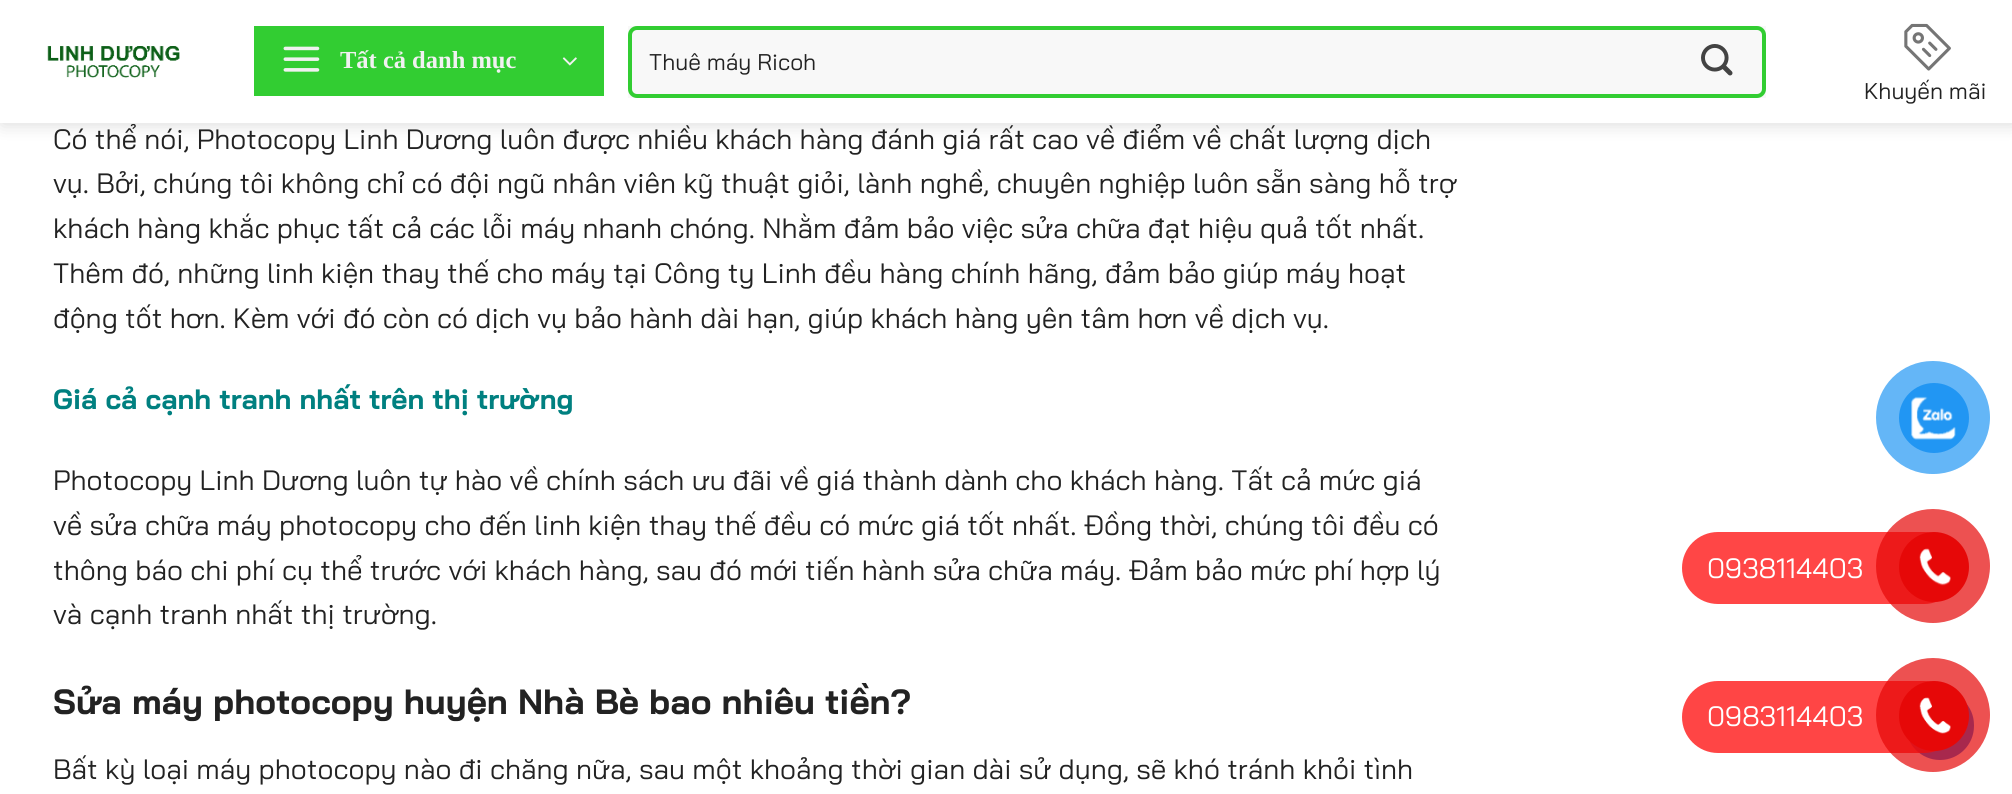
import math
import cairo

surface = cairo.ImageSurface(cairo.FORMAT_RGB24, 2012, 794)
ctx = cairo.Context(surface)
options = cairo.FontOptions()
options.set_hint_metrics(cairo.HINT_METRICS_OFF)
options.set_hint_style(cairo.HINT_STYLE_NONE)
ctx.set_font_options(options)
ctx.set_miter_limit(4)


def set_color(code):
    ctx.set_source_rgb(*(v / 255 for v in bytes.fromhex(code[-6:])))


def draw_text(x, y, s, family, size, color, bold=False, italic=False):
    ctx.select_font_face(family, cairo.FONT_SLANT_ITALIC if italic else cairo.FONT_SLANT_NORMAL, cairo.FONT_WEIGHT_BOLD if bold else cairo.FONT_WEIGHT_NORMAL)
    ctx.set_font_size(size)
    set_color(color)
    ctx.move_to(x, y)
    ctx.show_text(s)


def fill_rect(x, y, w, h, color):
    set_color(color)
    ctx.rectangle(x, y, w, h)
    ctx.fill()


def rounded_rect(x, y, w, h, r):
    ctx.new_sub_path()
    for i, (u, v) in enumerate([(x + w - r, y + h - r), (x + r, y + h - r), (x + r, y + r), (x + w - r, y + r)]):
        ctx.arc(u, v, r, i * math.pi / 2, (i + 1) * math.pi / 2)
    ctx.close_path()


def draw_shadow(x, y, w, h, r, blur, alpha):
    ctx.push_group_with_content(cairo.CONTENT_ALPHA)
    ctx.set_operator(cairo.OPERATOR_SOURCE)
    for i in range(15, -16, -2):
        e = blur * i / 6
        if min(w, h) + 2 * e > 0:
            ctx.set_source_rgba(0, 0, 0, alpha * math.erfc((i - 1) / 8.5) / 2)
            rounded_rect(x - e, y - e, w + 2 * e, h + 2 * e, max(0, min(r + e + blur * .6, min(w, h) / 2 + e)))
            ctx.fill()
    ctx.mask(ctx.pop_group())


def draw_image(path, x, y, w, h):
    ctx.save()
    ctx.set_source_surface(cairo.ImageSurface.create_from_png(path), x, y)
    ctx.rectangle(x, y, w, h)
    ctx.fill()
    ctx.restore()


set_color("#ffffff")
ctx.paint()
ctx.save()
ctx.set_fill_rule(cairo.FILL_RULE_EVEN_ODD)
ctx.new_path()
ctx.move_to(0, 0)
ctx.line_to(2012, 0)
ctx.line_to(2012, 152)
ctx.line_to(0, 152)
ctx.close_path()
ctx.move_to(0, 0)
ctx.line_to(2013, 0)
ctx.line_to(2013, 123)
ctx.line_to(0, 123)
ctx.close_path()
ctx.clip()
set_color("#000000")
draw_shadow(2, 2, 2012, 122, 0, 9, 0.15)
ctx.restore()
draw_image("assets/img1.png", 47, 46, 133, 32)
fill_rect(254, 26, 350, 70, "#32cd32")
draw_image("assets/img2.png", 283, 46, 37, 26)
draw_text(340, 68, "Tất cả danh mục", "Liberation Serif", 24.5, "#f1f1f1", bold=True)
draw_image("assets/img3.png", 562, 57, 15, 9)
ctx.set_source_rgba(0, 0, 0, 0.03)
ctx.rectangle(628, 26, 1138, 72)
ctx.fill()
rounded_rect(630, 28, 1134, 68, 7)
set_color("#32cd32")
ctx.set_line_width(4)
ctx.stroke()
draw_text(649, 70, "Thuê máy Ricoh", "Bai Jamjuree", 22.75, "#222222")
draw_image("assets/img4.png", 1701, 44, 32, 32)
draw_image("assets/img5.png", 1904, 23, 47, 48)
draw_text(1864, 99, "Khuyến mãi", "Bai Jamjuree", 22.75, "#222222")
ctx.set_source_rgba(1, 1, 1, 0.9)
ctx.rectangle(0, 122, 2012, 1)
ctx.fill()
draw_text(53, 149, "Có thể nói, Photocopy Linh Dương luôn được nhiều khách hàng đánh giá rất cao về điểm về chất lượng dịch", "Bai Jamjuree", 28, "#222222")
draw_text(53, 193, "vụ. Bởi, chúng tôi không chỉ có đội ngũ nhân viên kỹ thuật giỏi, lành nghề, chuyên nghiệp luôn sẵn sàng hỗ trợ", "Bai Jamjuree", 28, "#222222")
draw_text(53, 238, "khách hàng khắc phục tất cả các lỗi máy nhanh chóng. Nhằm đảm bảo việc sửa chữa đạt hiệu quả tốt nhất.", "Bai Jamjuree", 28, "#222222")
draw_text(53, 283, "Thêm đó, những linh kiện thay thế cho máy tại Công ty Linh đều hàng chính hãng, đảm bảo giúp máy hoạt", "Bai Jamjuree", 28, "#222222")
draw_text(53, 328, "động tốt hơn. Kèm với đó còn có dịch vụ bảo hành dài hạn, giúp khách hàng yên tâm hơn về dịch vụ.", "Bai Jamjuree", 28, "#222222")
draw_text(53, 409, "Giá cả cạnh tranh nhất trên thị trường", "Bai Jamjuree", 28, "#008080", bold=True)
draw_text(53, 490, "Photocopy Linh Dương luôn tự hào về chính sách ưu đãi về giá thành dành cho khách hàng. Tất cả mức giá", "Bai Jamjuree", 28, "#222222")
draw_text(53, 535, "về sửa chữa máy photocopy cho đến linh kiện thay thế đều có mức giá tốt nhất. Đồng thời, chúng tôi đều có", "Bai Jamjuree", 28, "#222222")
draw_text(53, 580, "thông báo chi phí cụ thể trước với khách hàng, sau đó mới tiến hành sửa chữa máy. Đảm bảo mức phí hợp lý", "Bai Jamjuree", 28, "#222222")
draw_text(53, 624, "và cạnh tranh nhất thị trường.", "Bai Jamjuree", 28, "#222222")
draw_text(53, 714, "Sửa máy photocopy huyện Nhà Bè bao nhiêu tiền?", "Bai Jamjuree", 35, "#222222", bold=True)
draw_text(53, 779, "Bất kỳ loại máy photocopy nào đi chăng nữa, sau một khoảng thời gian dài sử dụng, sẽ khó tránh khỏi tình", "Bai Jamjuree", 28, "#222222")
set_color("#1877f2")
rounded_rect(1906, 691, 68, 69, 34)
ctx.fill()
set_color("#64b6f7")
rounded_rect(1876, 361, 114, 113, 56.5)
ctx.fill()
set_color("#2196f3")
ctx.arc(1934, 418, 35, 0, 2 * math.pi)
ctx.fill()
draw_image("assets/img6.png", 1911, 396, 45, 44)
set_color("#ff4646")
rounded_rect(1682, 532, 278, 72, 36)
ctx.fill()
draw_text(1707, 578, "0938114403", "Bai Jamjuree", 28, "#ffffff")
ctx.set_source_rgba(0.902, 0.031, 0.031, 0.7)
ctx.new_path()
ctx.arc(1933, 566, 57, 0, 2 * math.pi)
ctx.fill()
set_color("#e60808")
ctx.arc(1934, 567, 35, 0, 2 * math.pi)
ctx.fill()
draw_image("assets/img7.png", 1919, 548, 32, 38)
ctx.set_source_rgba(1, 0.106, 0.106, 0.81)
rounded_rect(1682, 681, 278, 72, 36)
ctx.fill()
draw_text(1707, 726, "0983114403", "Bai Jamjuree", 28, "#ffffff")
ctx.set_source_rgba(0.902, 0.031, 0.031, 0.7)
ctx.new_path()
ctx.arc(1933, 715, 57, 0, 2 * math.pi)
ctx.fill()
set_color("#e60808")
ctx.arc(1934, 716, 35, 0, 2 * math.pi)
ctx.fill()
draw_image("assets/img8.png", 1919, 697, 32, 37)
surface.write_to_png("output.png")
